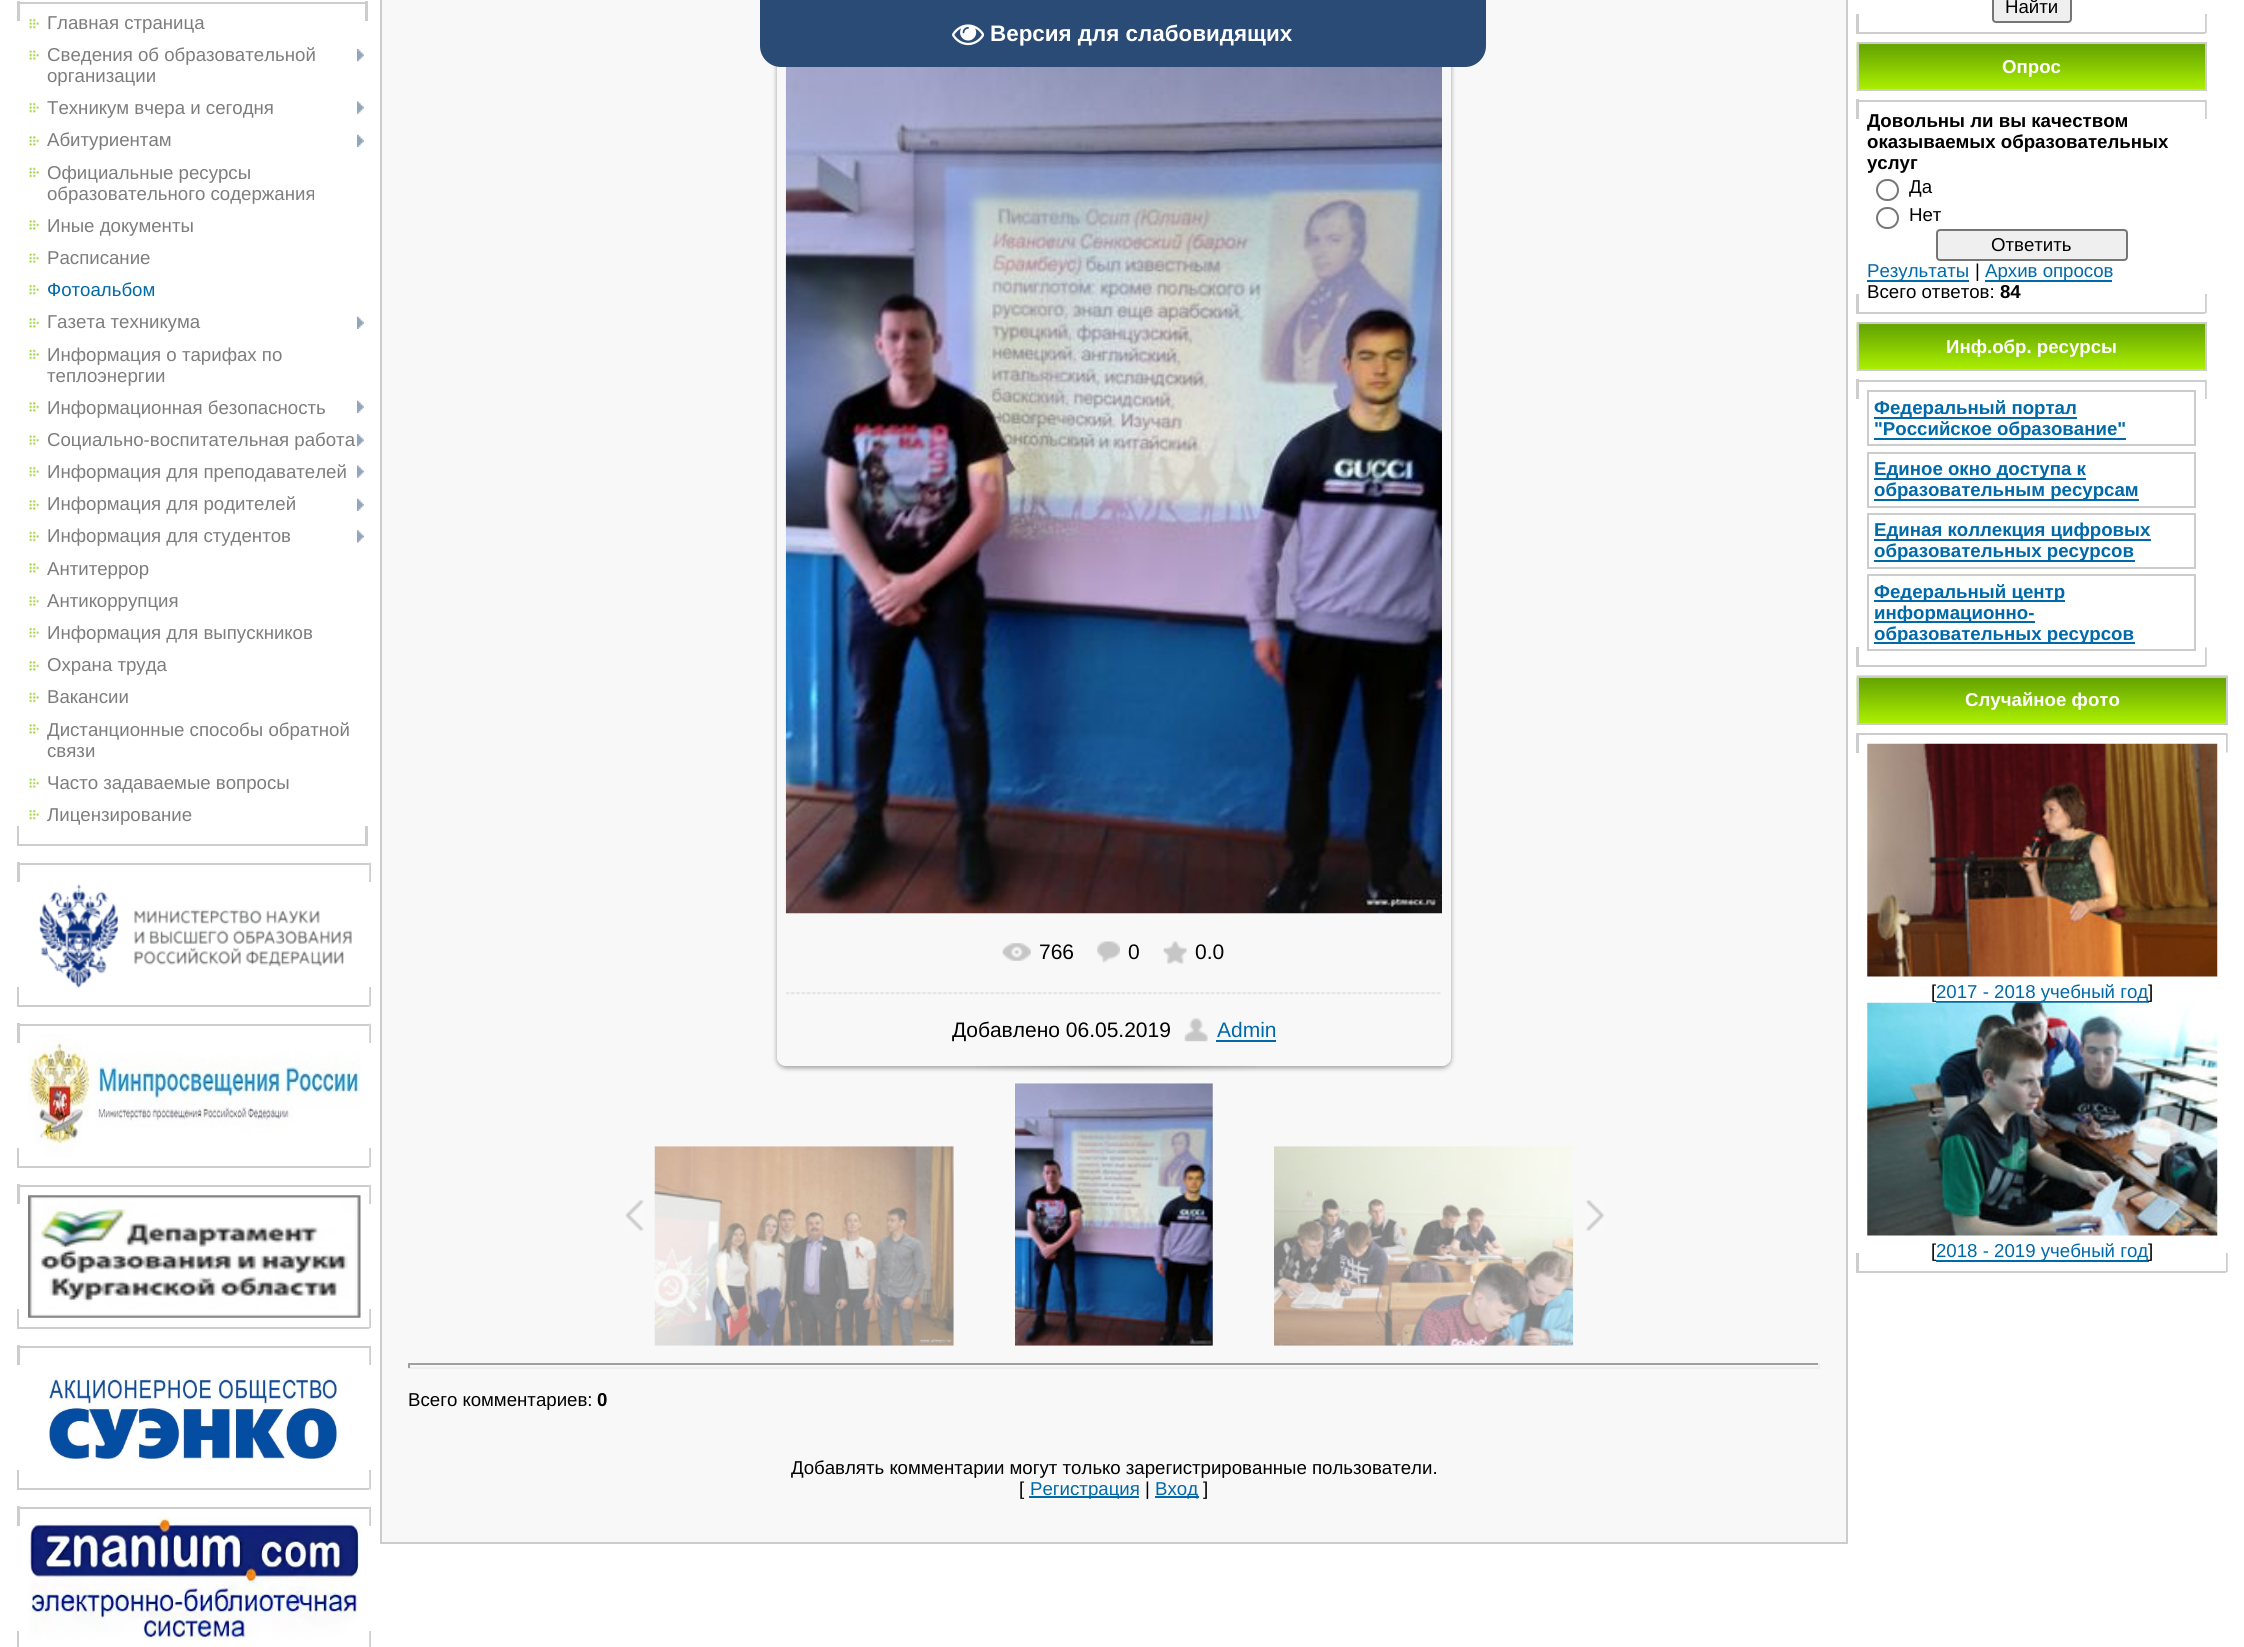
import math
import cairo

surface = cairo.ImageSurface(cairo.FORMAT_RGB24, 2244, 1647)
ctx = cairo.Context(surface)
options = cairo.FontOptions()
options.set_hint_metrics(cairo.HINT_METRICS_OFF)
options.set_hint_style(cairo.HINT_STYLE_NONE)
ctx.set_font_options(options)
ctx.set_miter_limit(4)


def set_color(code):
    ctx.set_source_rgb(*(v / 255 for v in bytes.fromhex(code[-6:])))


def draw_text(x, y, s, family, size, color, bold=False, italic=False):
    ctx.select_font_face(family, cairo.FONT_SLANT_ITALIC if italic else cairo.FONT_SLANT_NORMAL, cairo.FONT_WEIGHT_BOLD if bold else cairo.FONT_WEIGHT_NORMAL)
    ctx.set_font_size(size)
    set_color(color)
    ctx.move_to(x, y)
    ctx.show_text(s)


def fill_rect(x, y, w, h, color):
    set_color(color)
    ctx.rectangle(x, y, w, h)
    ctx.fill()


def rounded_rect(x, y, w, h, r):
    ctx.new_sub_path()
    for i, (u, v) in enumerate([(x + w - r, y + h - r), (x + r, y + h - r), (x + r, y + r), (x + w - r, y + r)]):
        ctx.arc(u, v, r, i * math.pi / 2, (i + 1) * math.pi / 2)
    ctx.close_path()


def draw_shadow(x, y, w, h, r, blur, alpha):
    ctx.push_group_with_content(cairo.CONTENT_ALPHA)
    ctx.set_operator(cairo.OPERATOR_SOURCE)
    for i in range(15, -16, -2):
        e = blur * i / 6
        if min(w, h) + 2 * e > 0:
            ctx.set_source_rgba(0, 0, 0, alpha * math.erfc((i - 1) / 8.5) / 2)
            rounded_rect(x - e, y - e, w + 2 * e, h + 2 * e, max(0, min(r + e + blur * .6, min(w, h) / 2 + e)))
            ctx.fill()
    ctx.mask(ctx.pop_group())


def draw_image(path, x, y, w, h):
    ctx.save()
    ctx.set_source_surface(cairo.ImageSurface.create_from_png(path), x, y)
    ctx.rectangle(x, y, w, h)
    ctx.fill()
    ctx.restore()


set_color("#ffffff")
ctx.paint()
fill_rect(17, 826, 2, 20, "#cdcdcd")
fill_rect(19, 2, 347, 2, "#cdcdcd")
fill_rect(17, 1, 3, 20, "#cdcdcd")
fill_rect(19, 844, 347, 2, "#cdcdcd")
draw_image("assets/img1.png", 29, 18, 10, 11)
draw_text(47, 29, "Главная страница", "Liberation Sans", 18.65, "#7d7d7d")
draw_image("assets/img2.png", 29, 50, 10, 10)
draw_text(47, 61, "Сведения об образовательной", "Liberation Sans", 18.65, "#7d7d7d")
draw_image("assets/img3.png", 357, 49, 7, 13)
draw_text(47, 82, "организации", "Liberation Sans", 18.65, "#7d7d7d")
draw_image("assets/img1.png", 29, 102, 10, 11)
draw_text(47, 114, "Техникум вчера и сегодня", "Liberation Sans", 18.65, "#7d7d7d")
draw_image("assets/img4.png", 357, 101, 7, 13)
draw_image("assets/img5.png", 29, 136, 10, 10)
draw_text(47, 146, "Абитуриентам", "Liberation Sans", 18.65, "#7d7d7d")
draw_image("assets/img6.png", 357, 134, 7, 13)
draw_image("assets/img7.png", 29, 167, 10, 11)
draw_text(47, 179, "Официальные ресурсы", "Liberation Sans", 18.65, "#7d7d7d")
draw_text(47, 200, "образовательного содержания", "Liberation Sans", 18.65, "#7d7d7d")
draw_image("assets/img5.png", 29, 220, 10, 10)
draw_text(47, 232, "Иные документы", "Liberation Sans", 18.65, "#7d7d7d")
draw_image("assets/img2.png", 29, 253, 10, 10)
draw_text(47, 264, "Расписание", "Liberation Sans", 18.65, "#7d7d7d")
draw_image("assets/img1.png", 29, 284, 10, 11)
draw_text(47, 296, "Фотоальбом", "Liberation Sans", 18.65, "#0069a9")
draw_image("assets/img5.png", 29, 318, 10, 10)
draw_text(47, 328, "Газета техникума", "Liberation Sans", 18.65, "#7d7d7d")
draw_image("assets/img6.png", 357, 316, 7, 13)
draw_image("assets/img7.png", 29, 349, 10, 11)
draw_text(47, 361, "Информация о тарифах по", "Liberation Sans", 18.65, "#7d7d7d")
draw_text(47, 382, "теплоэнергии", "Liberation Sans", 18.65, "#7d7d7d")
draw_image("assets/img5.png", 29, 402, 10, 10)
draw_text(47, 414, "Информационная безопасность", "Liberation Sans", 18.65, "#7d7d7d")
draw_image("assets/img6.png", 357, 400, 7, 13)
draw_image("assets/img2.png", 29, 435, 10, 10)
draw_text(47, 446, "Социально-воспитательная работа", "Liberation Sans", 18.65, "#7d7d7d")
draw_image("assets/img3.png", 357, 434, 7, 13)
draw_image("assets/img1.png", 29, 466, 10, 11)
draw_text(47, 478, "Информация для преподавателей", "Liberation Sans", 18.65, "#7d7d7d")
draw_image("assets/img4.png", 357, 465, 7, 13)
draw_image("assets/img5.png", 29, 500, 10, 10)
draw_text(47, 510, "Информация для родителей", "Liberation Sans", 18.65, "#7d7d7d")
draw_image("assets/img6.png", 357, 498, 7, 13)
draw_image("assets/img7.png", 29, 531, 10, 11)
draw_text(47, 542, "Информация для студентов", "Liberation Sans", 18.65, "#7d7d7d")
draw_image("assets/img8.png", 357, 530, 7, 13)
draw_image("assets/img5.png", 29, 563, 10, 10)
draw_text(47, 575, "Антитеррор", "Liberation Sans", 18.65, "#7d7d7d")
draw_image("assets/img2.png", 29, 596, 10, 10)
draw_text(47, 607, "Антикоррупция", "Liberation Sans", 18.65, "#7d7d7d")
draw_image("assets/img1.png", 29, 627, 10, 11)
draw_text(47, 639, "Информация для выпускников", "Liberation Sans", 18.65, "#7d7d7d")
draw_image("assets/img5.png", 29, 661, 10, 10)
draw_text(47, 671, "Охрана труда", "Liberation Sans", 18.65, "#7d7d7d")
draw_image("assets/img7.png", 29, 692, 10, 11)
draw_text(47, 703, "Вакансии", "Liberation Sans", 18.65, "#7d7d7d")
draw_image("assets/img5.png", 29, 724, 10, 10)
draw_text(47, 736, "Дистанционные способы обратной", "Liberation Sans", 18.65, "#7d7d7d")
draw_text(47, 757, "связи", "Liberation Sans", 18.65, "#7d7d7d")
draw_image("assets/img2.png", 29, 778, 10, 10)
draw_text(47, 789, "Часто задаваемые вопросы", "Liberation Sans", 18.65, "#7d7d7d")
draw_image("assets/img1.png", 29, 809, 10, 11)
draw_text(47, 821, "Лицензирование", "Liberation Sans", 18.65, "#7d7d7d")
fill_rect(365, 826, 3, 20, "#cdcdcd")
fill_rect(365, 1, 3, 20, "#cdcdcd")
fill_rect(17, 987, 2, 20, "#cdcdcd")
fill_rect(19, 863, 350, 2, "#cdcdcd")
fill_rect(17, 862, 3, 20, "#cdcdcd")
fill_rect(19, 1005, 350, 2, "#cdcdcd")
draw_image("assets/img9.png", 39, 884, 313, 105)
draw_image("assets/img10.png", 369, 987, 2, 20)
draw_image("assets/img11.png", 369, 862, 2, 20)
fill_rect(17, 1148, 2, 20, "#cdcdcd")
fill_rect(19, 1024, 350, 2, "#cdcdcd")
fill_rect(17, 1023, 3, 20, "#cdcdcd")
fill_rect(19, 1166, 350, 2, "#cdcdcd")
draw_image("assets/img12.png", 28, 1034, 333, 123)
draw_image("assets/img10.png", 369, 1148, 2, 20)
draw_image("assets/img11.png", 369, 1023, 2, 20)
fill_rect(17, 1309, 2, 20, "#cdcdcd")
fill_rect(19, 1185, 350, 2, "#cdcdcd")
fill_rect(17, 1184, 3, 20, "#cdcdcd")
fill_rect(19, 1327, 350, 2, "#cdcdcd")
draw_image("assets/img13.png", 28, 1195, 333, 123)
draw_image("assets/img10.png", 369, 1309, 2, 20)
draw_image("assets/img11.png", 369, 1184, 2, 20)
fill_rect(17, 1470, 2, 20, "#cdcdcd")
fill_rect(19, 1346, 350, 2, "#cdcdcd")
fill_rect(17, 1345, 3, 20, "#cdcdcd")
fill_rect(19, 1488, 350, 2, "#cdcdcd")
draw_image("assets/img14.png", 48, 1378, 292, 84)
draw_image("assets/img10.png", 369, 1470, 2, 20)
draw_image("assets/img11.png", 369, 1345, 2, 20)
fill_rect(17, 1631, 2, 16, "#cdcdcd")
fill_rect(19, 1507, 350, 2, "#cdcdcd")
fill_rect(17, 1506, 3, 20, "#cdcdcd")
draw_image("assets/img15.png", 28, 1517, 333, 123)
draw_image("assets/img16.png", 369, 1631, 2, 16)
draw_image("assets/img11.png", 369, 1506, 2, 20)
fill_rect(1859, 32, 346, 2, "#cdcdcd")
set_color("#efefef")
rounded_rect(1993, -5, 78, 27, 3)
ctx.fill_preserve()
set_color("#767676")
ctx.stroke()
draw_text(2005, 13, "Найти", "Liberation Sans", 18.65, "#000000")
fill_rect(1856, 14, 3, 20, "#cdcdcd")
draw_image("assets/img17.png", 2205, 14, 2, 20)
draw_image("assets/img18.png", 1856, 42, 349, 49)
ctx.rectangle(1858, 43, 348, 47)
set_color("#cccccc")
ctx.stroke()
draw_text(2002, 73, "Опрос", "Liberation Sans", 18.65, "#ffffff", bold=True)
fill_rect(1856, 294, 3, 20, "#cdcdcd")
fill_rect(1856, 99, 3, 20, "#cdcdcd")
fill_rect(1859, 100, 346, 2, "#cdcdcd")
fill_rect(1859, 312, 346, 2, "#cdcdcd")
draw_text(1867, 127, "Довольны ли вы качеством", "Liberation Sans", 18.65, "#000000", bold=True)
draw_text(1867, 148, "оказываемых образовательных", "Liberation Sans", 18.65, "#000000", bold=True)
draw_text(1867, 169, "услуг", "Liberation Sans", 18.65, "#000000", bold=True)
rounded_rect(1877, 180, 21, 20, 10)
set_color("#767676")
ctx.stroke()
draw_text(1909, 193, "Да", "Liberation Sans", 18.65, "#000000")
rounded_rect(1877, 208, 21, 20, 10)
set_color("#767676")
ctx.stroke()
draw_text(1909, 221, "Нет", "Liberation Sans", 18.65, "#000000")
set_color("#efefef")
rounded_rect(1937, 230, 190, 30, 3)
ctx.fill_preserve()
set_color("#767676")
ctx.stroke()
draw_text(1991, 251, "Ответить", "Liberation Sans", 18.65, "#000000")
fill_rect(1867, 280, 102, 2, "#0069a9")
draw_text(1867, 277, "Результаты", "Liberation Sans", 18.65, "#0069a9")
draw_text(1975, 277, "|", "Liberation Sans", 18.65, "#000000")
fill_rect(1985, 280, 127, 2, "#0069a9")
draw_text(1985, 277, "Архив опросов", "Liberation Sans", 18.65, "#0069a9")
draw_text(1867, 298, "Всего ответов:", "Liberation Sans", 18.65, "#000000")
draw_text(2000, 298, "84", "Liberation Sans", 18.65, "#000000", bold=True)
draw_image("assets/img17.png", 2205, 294, 2, 20)
draw_image("assets/img19.png", 2205, 99, 2, 20)
draw_image("assets/img20.png", 1856, 322, 349, 49)
ctx.rectangle(1858, 323, 348, 47)
set_color("#cccccc")
ctx.stroke()
draw_text(1946, 353, "Инф.обр. ресурсы", "Liberation Sans", 18.65, "#ffffff", bold=True)
fill_rect(1856, 647, 3, 20, "#cdcdcd")
fill_rect(1856, 379, 3, 20, "#cdcdcd")
fill_rect(1859, 380, 346, 2, "#cdcdcd")
fill_rect(1859, 665, 346, 2, "#cdcdcd")
ctx.rectangle(1868, 391, 327, 54)
set_color("#cccccc")
ctx.stroke()
fill_rect(1874, 417, 203, 2, "#0069a9")
draw_text(1874, 414, "Федеральный портал", "Liberation Sans", 18.65, "#0069a9", bold=True)
fill_rect(1874, 438, 252, 2, "#0069a9")
draw_text(1874, 435, "\"Российское образование\"", "Liberation Sans", 18.65, "#0069a9", bold=True)
ctx.rectangle(1868, 453, 327, 54)
set_color("#cccccc")
ctx.stroke()
fill_rect(1874, 478, 212, 2, "#0069a9")
draw_text(1874, 475, "Единое окно доступа к", "Liberation Sans", 18.65, "#0069a9", bold=True)
fill_rect(1874, 499, 265, 2, "#0069a9")
draw_text(1874, 496, "образовательным ресурсам", "Liberation Sans", 18.65, "#0069a9", bold=True)
ctx.rectangle(1868, 514, 327, 54)
set_color("#cccccc")
ctx.stroke()
fill_rect(1874, 539, 277, 2, "#0069a9")
draw_text(1874, 536, "Единая коллекция цифровых", "Liberation Sans", 18.65, "#0069a9", bold=True)
fill_rect(1874, 560, 261, 2, "#0069a9")
draw_text(1874, 557, "образовательных ресурсов", "Liberation Sans", 18.65, "#0069a9", bold=True)
ctx.rectangle(1868, 575, 327, 75)
set_color("#cccccc")
ctx.stroke()
fill_rect(1874, 600, 191, 2, "#0069a9")
draw_text(1874, 598, "Федеральный центр", "Liberation Sans", 18.65, "#0069a9", bold=True)
fill_rect(1874, 621, 161, 2, "#0069a9")
draw_text(1874, 619, "информационно-", "Liberation Sans", 18.65, "#0069a9", bold=True)
fill_rect(1874, 642, 261, 2, "#0069a9")
draw_text(1874, 640, "образовательных ресурсов", "Liberation Sans", 18.65, "#0069a9", bold=True)
draw_image("assets/img21.png", 2205, 647, 2, 20)
draw_image("assets/img19.png", 2205, 379, 2, 20)
draw_image("assets/img22.png", 1856, 675, 372, 50)
ctx.rectangle(1858, 677, 369, 47)
set_color("#cccccc")
ctx.stroke()
draw_text(1965, 706, "Случайное фото", "Liberation Sans", 18.65, "#ffffff", bold=True)
fill_rect(1856, 1253, 3, 20, "#cdcdcd")
fill_rect(1856, 733, 3, 20, "#cdcdcd")
fill_rect(1859, 733, 367, 2, "#cdcdcd")
fill_rect(1859, 1271, 367, 2, "#cdcdcd")
draw_image("assets/img23.png", 1867, 743, 351, 234)
draw_text(1931, 998, "[", "Liberation Sans", 18.65, "#000000")
fill_rect(1936, 1001, 213, 2, "#0069a9")
draw_text(1936, 998, "2017 - 2018 учебный год", "Liberation Sans", 18.65, "#0069a9")
draw_text(2148, 998, "]", "Liberation Sans", 18.65, "#000000")
draw_image("assets/img24.png", 1867, 1002, 351, 234)
draw_text(1931, 1257, "[", "Liberation Sans", 18.65, "#000000")
fill_rect(1936, 1260, 213, 2, "#0069a9")
draw_text(1936, 1257, "2018 - 2019 учебный год", "Liberation Sans", 18.65, "#0069a9")
draw_text(2148, 1257, "]", "Liberation Sans", 18.65, "#000000")
draw_image("assets/img17.png", 2226, 1253, 2, 20)
draw_image("assets/img25.png", 2226, 733, 2, 20)
ctx.rectangle(381, -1, 1466, 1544)
set_color("#cccccc")
ctx.stroke()
fill_rect(382, 0, 1464, 1542, "#f8f8f8")
ctx.save()
ctx.set_fill_rule(cairo.FILL_RULE_EVEN_ODD)
ctx.new_path()
ctx.move_to(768, 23)
ctx.line_to(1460, 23)
ctx.line_to(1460, 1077)
ctx.line_to(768, 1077)
ctx.close_path()
ctx.move_to(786, 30)
ctx.line_to(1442, 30)
ctx.curve_to(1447, 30, 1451, 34, 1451, 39)
ctx.line_to(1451, 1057)
ctx.curve_to(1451, 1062, 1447, 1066, 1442, 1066)
ctx.line_to(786, 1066)
ctx.curve_to(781, 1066, 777, 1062, 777, 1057)
ctx.line_to(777, 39)
ctx.curve_to(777, 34, 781, 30, 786, 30)
ctx.close_path()
ctx.clip()
set_color("#000000")
draw_shadow(777, 32, 674, 1036, 9, 2.5, 0.37)
ctx.restore()
fill_rect(1447, 1063, 1, 1, "#ebebeb")
draw_image("assets/img26.png", 785, 67, 657, 847)
draw_image("assets/img27.png", 1002, 943, 29, 18)
draw_text(1039, 959, "766", "Liberation Sans", 21, "#000000")
draw_image("assets/img28.png", 1097, 941, 23, 22)
draw_text(1128, 959, "0", "Liberation Sans", 21, "#000000")
draw_image("assets/img29.png", 1163, 941, 24, 23)
draw_text(1195, 959, "0.0", "Liberation Sans", 21, "#000000")
draw_image("assets/img30.png", 786, 992, 655, 3)
draw_text(952, 1037, "Добавлено 06.05.2019", "Liberation Sans", 21, "#000000")
draw_image("assets/img31.png", 1184, 1018, 24, 24)
draw_text(1217, 1037, "Admin", "Liberation Sans", 21, "#0069a9")
fill_rect(1216, 1040, 60, 2, "#0069a9")
draw_image("assets/img32.png", 976, 1065, 280, 7)
draw_image("assets/img33.png", 625, 1200, 19, 31)
draw_image("assets/img34.png", 654, 1146, 300, 200)
draw_image("assets/img35.png", 1015, 1083, 198, 263)
draw_image("assets/img36.png", 1274, 1146, 300, 200)
draw_image("assets/img37.png", 1585, 1200, 20, 31)
fill_rect(408, 1363, 1412, 2, "#9f9f9f")
fill_rect(1818, 1363, 2, 5, "#eeeeee")
fill_rect(408, 1367, 1412, 2, "#eeeeee")
fill_rect(408, 1363, 2, 5, "#9f9f9f")
draw_text(408, 1406, "Всего комментариев:", "Liberation Sans", 18.65, "#000000")
draw_text(597, 1406, "0", "Liberation Sans", 18.65, "#000000", bold=True)
draw_text(791, 1474, "Добавлять комментарии могут только зарегистрированные пользователи.", "Liberation Sans", 18.65, "#000000")
draw_text(1019, 1495, "[", "Liberation Sans", 18.65, "#000000")
fill_rect(1029, 1496, 110, 2, "#0069a9")
draw_text(1030, 1495, "Регистрация", "Liberation Sans", 18.65, "#0069a9")
draw_text(1145, 1495, "|", "Liberation Sans", 18.65, "#000000")
fill_rect(1155, 1496, 44, 2, "#0069a9")
draw_text(1155, 1495, "Вход", "Liberation Sans", 18.65, "#0069a9")
draw_text(1203, 1495, "]", "Liberation Sans", 18.65, "#000000")
set_color("#2a4b75")
ctx.new_path()
ctx.move_to(760, 0)
ctx.line_to(1486, 0)
ctx.line_to(1486, 46)
ctx.curve_to(1486, 57.5, 1476.5, 67, 1465, 67)
ctx.line_to(781, 67)
ctx.curve_to(769.5, 67, 760, 57.5, 760, 46)
ctx.close_path()
ctx.fill()
draw_image("assets/img38.png", 952, 24, 32, 22)
draw_text(990, 41, "Версия для слабовидящих", "Liberation Sans", 22.4, "#ffffff", bold=True)
surface.write_to_png("output.png")
